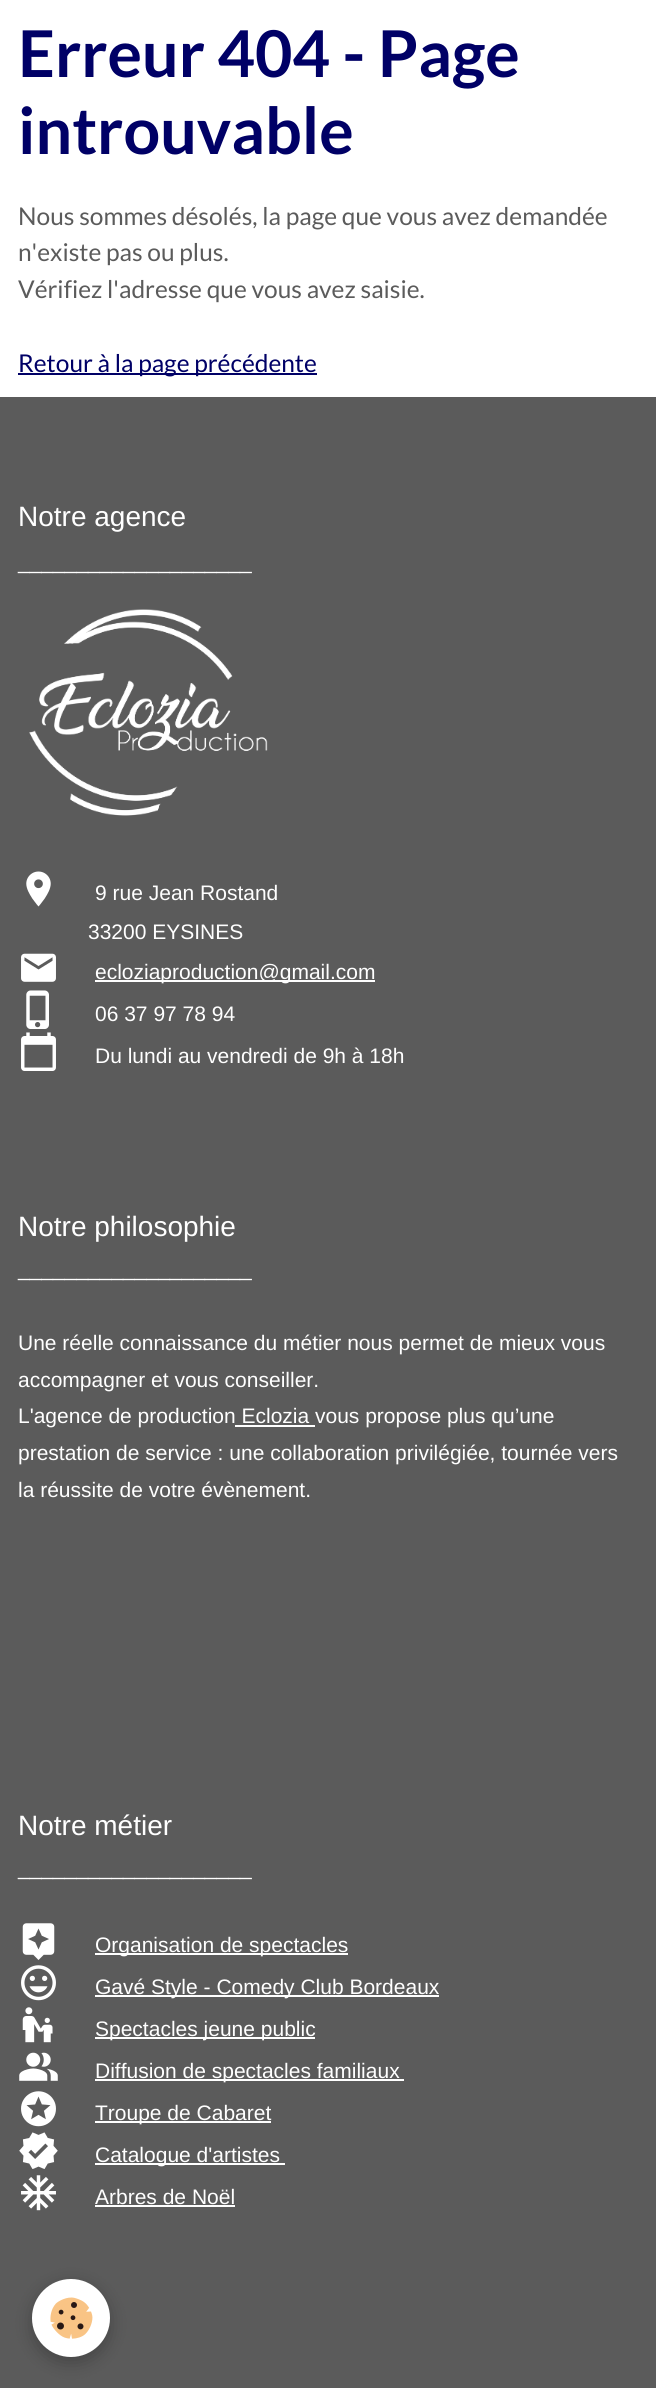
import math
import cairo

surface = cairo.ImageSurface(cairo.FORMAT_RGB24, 656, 2388)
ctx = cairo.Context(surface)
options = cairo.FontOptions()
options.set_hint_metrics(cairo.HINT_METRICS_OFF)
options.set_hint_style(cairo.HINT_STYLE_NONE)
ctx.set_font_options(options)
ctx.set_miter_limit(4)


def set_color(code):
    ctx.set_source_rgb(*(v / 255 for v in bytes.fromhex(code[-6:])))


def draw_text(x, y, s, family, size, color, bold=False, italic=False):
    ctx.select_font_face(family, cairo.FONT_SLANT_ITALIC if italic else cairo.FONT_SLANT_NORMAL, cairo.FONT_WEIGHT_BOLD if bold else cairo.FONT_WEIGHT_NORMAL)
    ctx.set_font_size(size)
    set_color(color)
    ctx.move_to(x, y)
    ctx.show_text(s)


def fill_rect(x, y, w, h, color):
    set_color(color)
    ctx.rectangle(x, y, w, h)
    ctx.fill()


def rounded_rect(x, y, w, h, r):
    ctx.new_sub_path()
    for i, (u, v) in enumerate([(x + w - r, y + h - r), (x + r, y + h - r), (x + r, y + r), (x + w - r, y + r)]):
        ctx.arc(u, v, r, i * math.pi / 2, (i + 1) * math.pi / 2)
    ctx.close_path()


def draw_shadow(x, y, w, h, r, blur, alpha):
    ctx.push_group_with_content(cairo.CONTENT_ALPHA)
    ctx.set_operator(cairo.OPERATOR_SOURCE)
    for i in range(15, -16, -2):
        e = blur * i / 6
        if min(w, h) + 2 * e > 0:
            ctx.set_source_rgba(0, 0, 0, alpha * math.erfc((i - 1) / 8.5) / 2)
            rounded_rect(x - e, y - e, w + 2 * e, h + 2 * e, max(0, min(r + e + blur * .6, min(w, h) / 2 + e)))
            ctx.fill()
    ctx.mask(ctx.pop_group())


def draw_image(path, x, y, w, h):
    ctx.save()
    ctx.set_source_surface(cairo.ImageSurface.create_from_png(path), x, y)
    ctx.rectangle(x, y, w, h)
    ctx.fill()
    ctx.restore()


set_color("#ffffff")
ctx.paint()
draw_text(18, 77, "Erreur 404 - Page", "Lato", 64.5, "#000066", bold=True)
draw_text(18, 154, "introuvable", "Lato", 64.5, "#000066", bold=True)
draw_text(18, 225, "Nous sommes désolés, la page que vous avez demandée", "Lato", 24.5, "#5b5b5b")
draw_text(18, 261, "n'existe pas ou plus.", "Lato", 24.5, "#5b5b5b")
draw_text(18, 298, "Vérifiez l'adresse que vous avez saisie.", "Lato", 24.5, "#5b5b5b")
fill_rect(18, 373, 299, 2, "#000066")
draw_text(18, 372, "Retour à la page précédente", "Lato", 24.5, "#000066")
fill_rect(0, 397, 656, 1991, "#5b5b5b")
draw_text(18, 526, "Notre agence", "Liberation Sans", 28, "#ffffff")
draw_text(18, 569, "____________________", "Liberation Sans", 21, "#ffffff")
draw_image("assets/img1.png", 29, 609, 239, 207)
draw_image("assets/img2.png", 26, 871, 25, 36)
draw_text(95, 900, "9 rue Jean Rostand", "Liberation Sans", 21, "#ffffff")
draw_text(88, 939, "33200 EYSINES", "Liberation Sans", 21, "#ffffff")
draw_image("assets/img3.png", 21, 953, 35, 29)
fill_rect(95, 980, 280, 2, "#ffffff")
draw_text(95, 979, "ecloziaproduction@gmail.com", "Liberation Sans", 21, "#ffffff")
draw_image("assets/img4.png", 26, 990, 23, 39)
draw_text(95, 1021, "06 37 97 78 94", "Liberation Sans", 21, "#ffffff")
draw_image("assets/img5.png", 21, 1032, 35, 39)
draw_text(95, 1063, "Du lundi au vendredi de 9h à 18h", "Liberation Sans", 21, "#ffffff")
draw_text(18, 1236, "Notre philosophie", "Liberation Sans", 28, "#ffffff")
draw_text(18, 1276, "____________________", "Liberation Sans", 21, "#ffffff")
draw_text(18, 1350, "Une réelle connaissance du métier nous permet de mieux vous", "Liberation Sans", 21, "#ffffff")
draw_text(18, 1387, "accompagner et vous conseiller.", "Liberation Sans", 21, "#ffffff")
draw_text(18, 1423, "L'agence de production Eclozia", "Liberation Sans", 21, "#ffffff")
fill_rect(235, 1425, 80, 2, "#ffffff")
draw_text(315, 1423, "vous propose plus qu’une", "Liberation Sans", 21, "#ffffff")
draw_text(18, 1460, "prestation de service : une collaboration privilégiée, tournée vers", "Liberation Sans", 21, "#ffffff")
draw_text(18, 1497, "la réussite de votre évènement.", "Liberation Sans", 21, "#ffffff")
draw_text(18, 1835, "Notre métier", "Liberation Sans", 28, "#ffffff")
draw_text(18, 1875, "____________________", "Liberation Sans", 21, "#ffffff")
draw_image("assets/img6.png", 22, 1923, 33, 37)
fill_rect(95, 1953, 253, 2, "#ffffff")
draw_text(95, 1952, "Organisation de spectacles", "Liberation Sans", 21, "#ffffff")
draw_image("assets/img7.png", 21, 1965, 35, 36)
fill_rect(95, 1995, 344, 2, "#ffffff")
draw_text(95, 1994, "Gavé Style - Comedy Club Bordeaux", "Liberation Sans", 21, "#ffffff")
draw_image("assets/img8.png", 22, 2007, 31, 36)
fill_rect(95, 2037, 220, 2, "#ffffff")
draw_text(95, 2036, "Spectacles jeune public", "Liberation Sans", 21, "#ffffff")
draw_image("assets/img9.png", 19, 2052, 39, 29)
fill_rect(95, 2079, 309, 2, "#ffffff")
draw_text(95, 2078, "Diffusion de spectacles familiaux", "Liberation Sans", 21, "#ffffff")
draw_image("assets/img10.png", 21, 2091, 35, 36)
fill_rect(95, 2121, 176, 2, "#ffffff")
draw_text(95, 2120, "Troupe de Cabaret", "Liberation Sans", 21, "#ffffff")
draw_image("assets/img11.png", 19, 2132, 39, 37)
fill_rect(95, 2163, 190, 2, "#ffffff")
draw_text(95, 2162, "Catalogue d'artistes", "Liberation Sans", 21, "#ffffff")
draw_image("assets/img12.png", 21, 2175, 35, 36)
draw_text(95, 2204, "Arbres de Noël", "Liberation Sans", 21, "#ffffff")
fill_rect(95, 2205, 140, 2, "#ffffff")
set_color("#000000")
draw_shadow(32, 2284, 78, 79, 39, 9, 0.24)
set_color("#ffffff")
ctx.arc(71, 2318, 39, 0, 2 * math.pi)
ctx.fill()
draw_image("assets/img13.png", 50, 2297, 43, 42)
surface.write_to_png("output.png")
